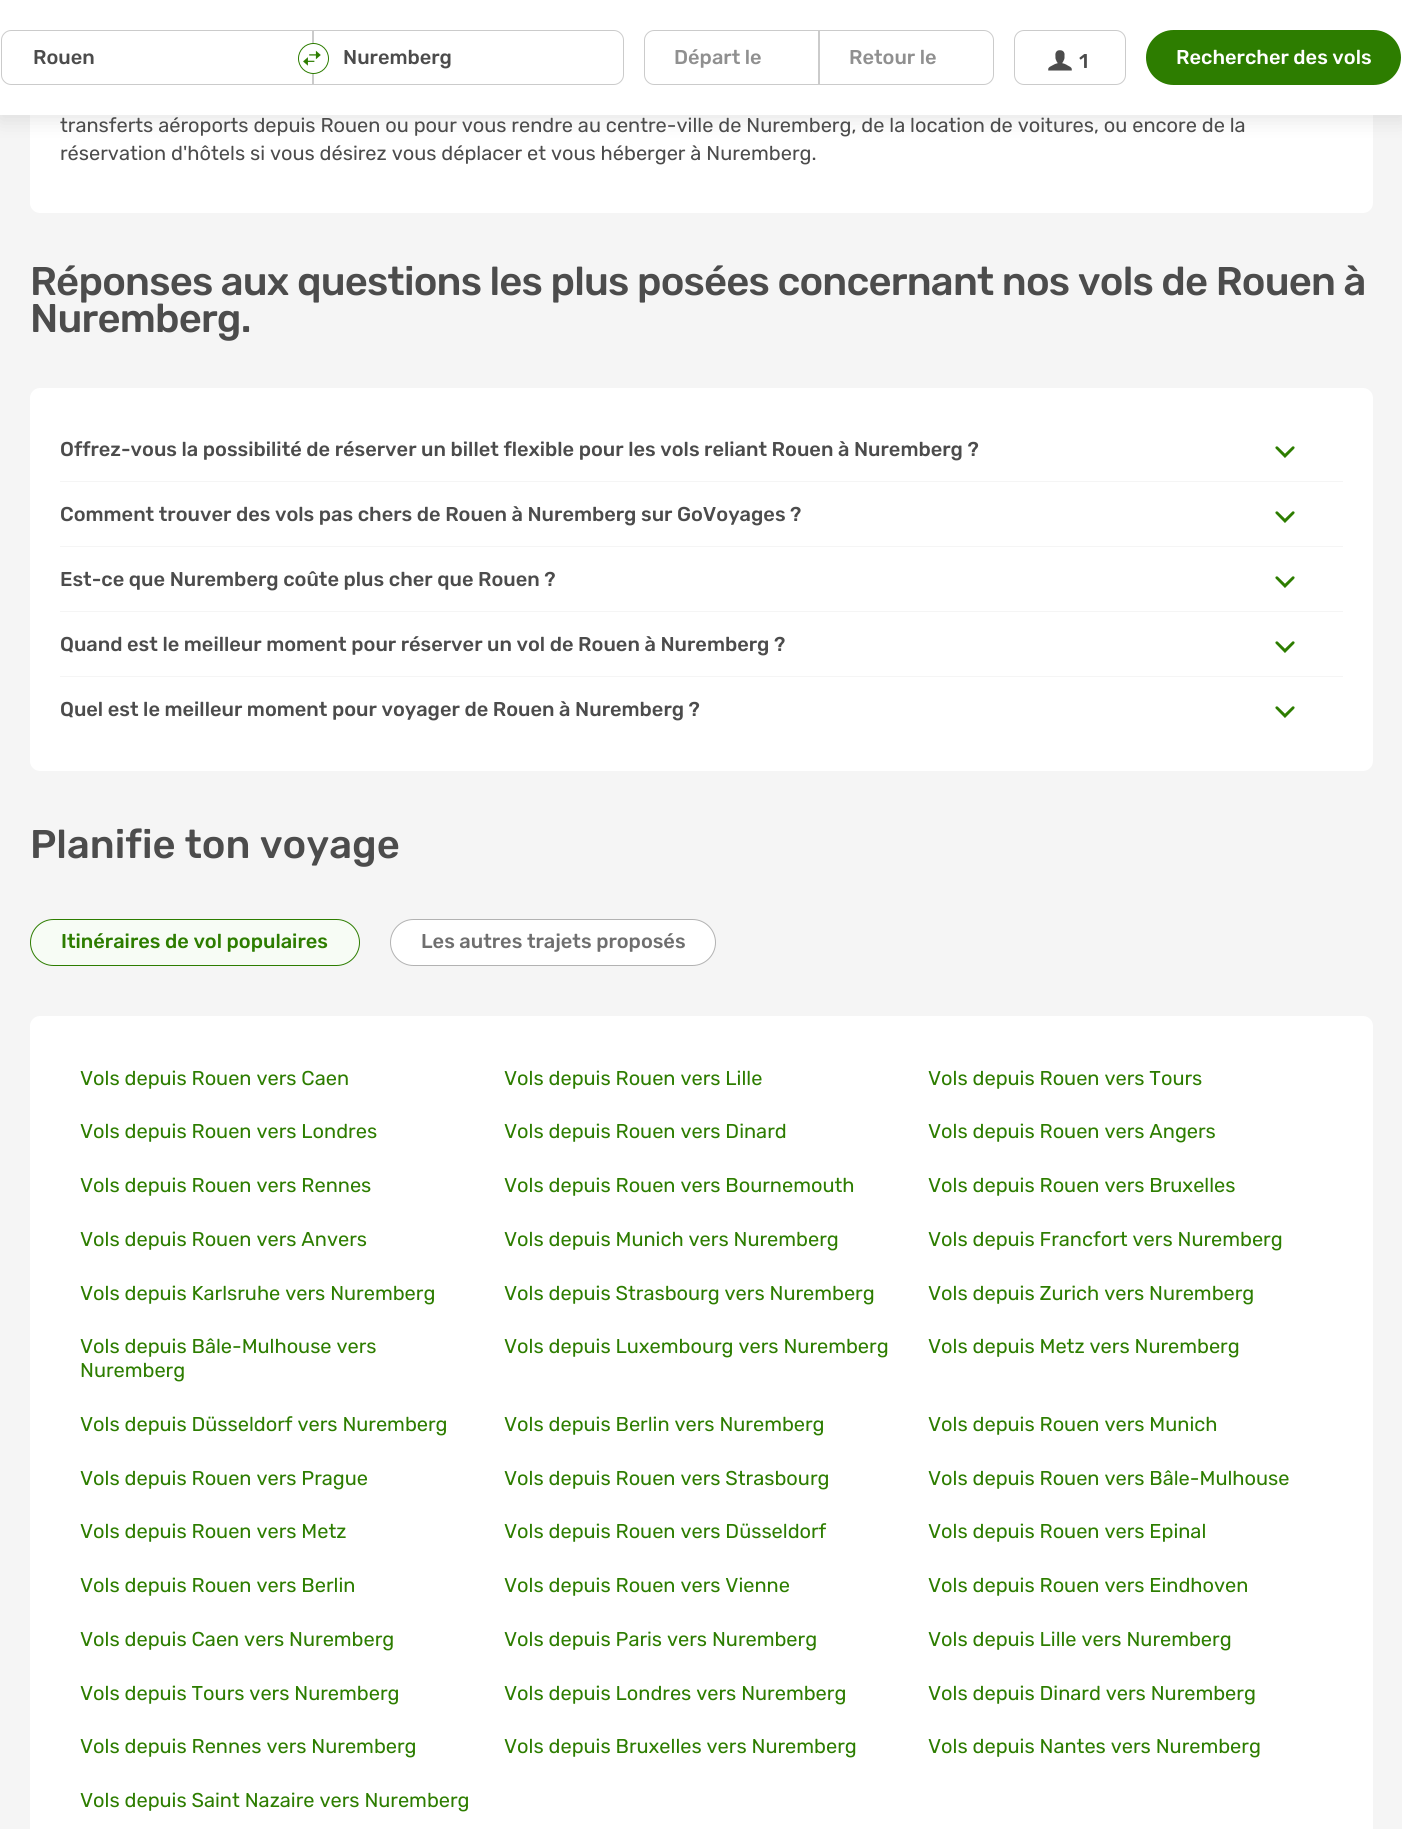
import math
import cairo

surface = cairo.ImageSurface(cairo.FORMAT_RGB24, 1402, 1829)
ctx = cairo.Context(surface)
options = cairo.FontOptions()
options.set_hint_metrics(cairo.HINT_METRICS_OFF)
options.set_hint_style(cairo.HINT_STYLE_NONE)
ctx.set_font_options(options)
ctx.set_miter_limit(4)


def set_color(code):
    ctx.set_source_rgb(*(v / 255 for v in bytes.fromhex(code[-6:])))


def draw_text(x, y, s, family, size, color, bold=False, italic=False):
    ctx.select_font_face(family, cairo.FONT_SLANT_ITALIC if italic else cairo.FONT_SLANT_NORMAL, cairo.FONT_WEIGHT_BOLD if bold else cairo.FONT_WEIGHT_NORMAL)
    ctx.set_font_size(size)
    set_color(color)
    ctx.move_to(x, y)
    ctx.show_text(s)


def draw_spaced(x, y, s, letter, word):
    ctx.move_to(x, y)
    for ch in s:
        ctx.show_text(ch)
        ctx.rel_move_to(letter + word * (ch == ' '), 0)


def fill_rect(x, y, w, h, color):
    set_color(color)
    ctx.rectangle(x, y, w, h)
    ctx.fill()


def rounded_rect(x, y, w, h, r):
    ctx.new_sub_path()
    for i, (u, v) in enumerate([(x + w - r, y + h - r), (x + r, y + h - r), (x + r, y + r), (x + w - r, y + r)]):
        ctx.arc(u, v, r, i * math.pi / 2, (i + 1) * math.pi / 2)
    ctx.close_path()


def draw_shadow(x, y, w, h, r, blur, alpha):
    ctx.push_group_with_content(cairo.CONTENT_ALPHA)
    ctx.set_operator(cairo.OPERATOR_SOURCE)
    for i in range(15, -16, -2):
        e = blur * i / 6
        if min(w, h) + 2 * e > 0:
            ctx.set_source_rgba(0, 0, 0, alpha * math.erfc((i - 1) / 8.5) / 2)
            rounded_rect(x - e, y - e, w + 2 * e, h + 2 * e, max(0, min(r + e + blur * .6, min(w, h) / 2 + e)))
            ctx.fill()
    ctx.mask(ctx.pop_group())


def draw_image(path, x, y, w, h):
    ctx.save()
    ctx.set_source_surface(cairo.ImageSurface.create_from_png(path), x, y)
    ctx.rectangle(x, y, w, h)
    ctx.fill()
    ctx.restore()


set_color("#f5f5f5")
ctx.paint()
set_color("#ffffff")
rounded_rect(30, -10, 1343, 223, 10)
ctx.fill()
set_color("#000000")
draw_shadow(0, 5, 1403, 115, 0, 10, 0.1)
fill_rect(0, 0, 1402, 115, "#ffffff")
ctx.new_path()
ctx.move_to(11, 30.5)
ctx.line_to(312.5, 30.5)
ctx.line_to(312.5, 84.5)
ctx.line_to(11, 84.5)
ctx.curve_to(6, 84.5, 1.5, 80, 1.5, 75)
ctx.line_to(1.5, 40)
ctx.curve_to(1.5, 35, 6, 30.5, 11, 30.5)
ctx.close_path()
set_color("#cbcbcb")
ctx.set_line_width(1)
ctx.stroke()
draw_text(33, 64, "Rouen", "Rubik Medium", 20, "#4c4c4c")
ctx.new_path()
ctx.move_to(313.5, 30.5)
ctx.line_to(614, 30.5)
ctx.curve_to(619, 30.5, 623.5, 35, 623.5, 40)
ctx.line_to(623.5, 75)
ctx.curve_to(623.5, 80, 619, 84.5, 614, 84.5)
ctx.line_to(313.5, 84.5)
ctx.close_path()
set_color("#cbcbcb")
ctx.stroke()
set_color("#ffffff")
ctx.arc(313.5, 58.5, 15, 0, 2 * math.pi)
ctx.fill_preserve()
set_color("#2d7d00")
ctx.stroke()
draw_image("assets/img1.png", 303, 50, 18, 16)
draw_text(343, 64, "Nuremberg", "Rubik Medium", 20, "#4c4c4c")
ctx.new_path()
ctx.move_to(654, 30.5)
ctx.line_to(818.5, 30.5)
ctx.line_to(818.5, 84.5)
ctx.line_to(654, 84.5)
ctx.curve_to(649, 84.5, 644.5, 80, 644.5, 75)
ctx.line_to(644.5, 40)
ctx.curve_to(644.5, 35, 649, 30.5, 654, 30.5)
ctx.close_path()
set_color("#cbcbcb")
ctx.stroke()
draw_text(674, 64, "Départ le", "Rubik Medium", 20, "#909090")
ctx.new_path()
ctx.move_to(819.5, 30.5)
ctx.line_to(984, 30.5)
ctx.curve_to(989, 30.5, 993.5, 35, 993.5, 40)
ctx.line_to(993.5, 75)
ctx.curve_to(993.5, 80, 989, 84.5, 984, 84.5)
ctx.line_to(819.5, 84.5)
ctx.close_path()
set_color("#cbcbcb")
ctx.stroke()
draw_text(849, 64, "Retour le", "Rubik Medium", 20, "#909090")
rounded_rect(1014.5, 30.5, 111, 54, 9.5)
set_color("#cbcbcb")
ctx.stroke()
draw_image("assets/img2.png", 1048, 50, 24, 21)
draw_text(1079, 68, "1", "Rubik Medium", 20, "#4c4c4c")
set_color("#2d7d00")
rounded_rect(1146, 30, 255, 55, 27.5)
ctx.fill()
draw_text(1176, 64, "Rechercher des vols", "Rubik Medium", 20, "#ffffff")
draw_text(60, 132, "transferts aéroports depuis Rouen ou pour vous rendre au centre-ville de Nuremberg, de la location de voitures, ou encore de la", "Rubik", 20, "#4c4c4c")
draw_text(60, 160, "réservation d'hôtels si vous désirez vous déplacer et vous héberger à Nuremberg.", "Rubik", 20, "#4c4c4c")
ctx.select_font_face("Rubik Medium")
ctx.set_font_size(40)
draw_spaced(30, 295, "Réponses aux questions les plus posées concernant nos vols de Rouen à", -0.8, 0)
draw_spaced(30, 332, "Nuremberg.", -0.8, 0)
set_color("#ffffff")
rounded_rect(30, 388, 1343, 383, 10)
ctx.fill()
draw_text(60, 456, "Offrez-vous la possibilité de réserver un billet flexible pour les vols reliant Rouen à Nuremberg ?", "Rubik Medium", 20, "#4c4c4c")
draw_image("assets/img3.png", 1275, 446, 20, 12)
fill_rect(60, 481, 1283, 1, "#f5f5f5")
draw_text(60, 521, "Comment trouver des vols pas chers de Rouen à Nuremberg sur GoVoyages ?", "Rubik Medium", 20, "#4c4c4c")
draw_image("assets/img3.png", 1275, 511, 20, 12)
fill_rect(60, 546, 1283, 1, "#f5f5f5")
draw_text(60, 586, "Est-ce que Nuremberg coûte plus cher que Rouen ?", "Rubik Medium", 20, "#4c4c4c")
draw_image("assets/img3.png", 1275, 576, 20, 12)
fill_rect(60, 611, 1283, 1, "#f5f5f5")
draw_text(60, 651, "Quand est le meilleur moment pour réserver un vol de Rouen à Nuremberg ?", "Rubik Medium", 20, "#4c4c4c")
draw_image("assets/img3.png", 1275, 641, 20, 12)
fill_rect(60, 676, 1283, 1, "#f5f5f5")
draw_text(60, 716, "Quel est le meilleur moment pour voyager de Rouen à Nuremberg ?", "Rubik Medium", 20, "#4c4c4c")
draw_image("assets/img3.png", 1275, 706, 20, 12)
draw_text(30, 858, "Planifie ton voyage", "Rubik Medium", 40, "#4c4c4c")
set_color("#f7fcf5")
rounded_rect(30.5, 919.5, 329, 46, 23)
ctx.fill_preserve()
set_color("#2d7d00")
ctx.stroke()
draw_text(61, 948, "Itinéraires de vol populaires", "Rubik Medium", 20, "#2d7d00")
set_color("#ffffff")
rounded_rect(390.5, 919.5, 325, 46, 23)
ctx.fill_preserve()
set_color("#b2b2b2")
ctx.stroke()
draw_text(421, 948, "Les autres trajets proposés", "Rubik Medium", 20, "#6f6f6f")
set_color("#ffffff")
rounded_rect(30, 1016, 1343, 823, 10)
ctx.fill()
draw_text(80, 1085, "Vols depuis Rouen vers Caen", "Rubik", 20, "#2d7d00")
draw_text(504, 1085, "Vols depuis Rouen vers Lille", "Rubik", 20, "#2d7d00")
draw_text(928, 1085, "Vols depuis Rouen vers Tours", "Rubik", 20, "#2d7d00")
draw_text(80, 1138, "Vols depuis Rouen vers Londres", "Rubik", 20, "#2d7d00")
draw_text(504, 1138, "Vols depuis Rouen vers Dinard", "Rubik", 20, "#2d7d00")
draw_text(928, 1138, "Vols depuis Rouen vers Angers", "Rubik", 20, "#2d7d00")
draw_text(80, 1192, "Vols depuis Rouen vers Rennes", "Rubik", 20, "#2d7d00")
draw_text(504, 1192, "Vols depuis Rouen vers Bournemouth", "Rubik", 20, "#2d7d00")
draw_text(928, 1192, "Vols depuis Rouen vers Bruxelles", "Rubik", 20, "#2d7d00")
draw_text(80, 1246, "Vols depuis Rouen vers Anvers", "Rubik", 20, "#2d7d00")
draw_text(504, 1246, "Vols depuis Munich vers Nuremberg", "Rubik", 20, "#2d7d00")
draw_text(928, 1246, "Vols depuis Francfort vers Nuremberg", "Rubik", 20, "#2d7d00")
draw_text(80, 1300, "Vols depuis Karlsruhe vers Nuremberg", "Rubik", 20, "#2d7d00")
draw_text(504, 1300, "Vols depuis Strasbourg vers Nuremberg", "Rubik", 20, "#2d7d00")
draw_text(928, 1300, "Vols depuis Zurich vers Nuremberg", "Rubik", 20, "#2d7d00")
draw_text(80, 1353, "Vols depuis Bâle-Mulhouse vers", "Rubik", 20, "#2d7d00")
draw_text(80, 1377, "Nuremberg", "Rubik", 20, "#2d7d00")
draw_text(504, 1353, "Vols depuis Luxembourg vers Nuremberg", "Rubik", 20, "#2d7d00")
draw_text(928, 1353, "Vols depuis Metz vers Nuremberg", "Rubik", 20, "#2d7d00")
draw_text(80, 1431, "Vols depuis Düsseldorf vers Nuremberg", "Rubik", 20, "#2d7d00")
draw_text(504, 1431, "Vols depuis Berlin vers Nuremberg", "Rubik", 20, "#2d7d00")
draw_text(928, 1431, "Vols depuis Rouen vers Munich", "Rubik", 20, "#2d7d00")
draw_text(80, 1485, "Vols depuis Rouen vers Prague", "Rubik", 20, "#2d7d00")
draw_text(504, 1485, "Vols depuis Rouen vers Strasbourg", "Rubik", 20, "#2d7d00")
draw_text(928, 1485, "Vols depuis Rouen vers Bâle-Mulhouse", "Rubik", 20, "#2d7d00")
draw_text(80, 1538, "Vols depuis Rouen vers Metz", "Rubik", 20, "#2d7d00")
draw_text(504, 1538, "Vols depuis Rouen vers Düsseldorf", "Rubik", 20, "#2d7d00")
draw_text(928, 1538, "Vols depuis Rouen vers Epinal", "Rubik", 20, "#2d7d00")
draw_text(80, 1592, "Vols depuis Rouen vers Berlin", "Rubik", 20, "#2d7d00")
draw_text(504, 1592, "Vols depuis Rouen vers Vienne", "Rubik", 20, "#2d7d00")
draw_text(928, 1592, "Vols depuis Rouen vers Eindhoven", "Rubik", 20, "#2d7d00")
draw_text(80, 1646, "Vols depuis Caen vers Nuremberg", "Rubik", 20, "#2d7d00")
draw_text(504, 1646, "Vols depuis Paris vers Nuremberg", "Rubik", 20, "#2d7d00")
draw_text(928, 1646, "Vols depuis Lille vers Nuremberg", "Rubik", 20, "#2d7d00")
draw_text(80, 1700, "Vols depuis Tours vers Nuremberg", "Rubik", 20, "#2d7d00")
draw_text(504, 1700, "Vols depuis Londres vers Nuremberg", "Rubik", 20, "#2d7d00")
draw_text(928, 1700, "Vols depuis Dinard vers Nuremberg", "Rubik", 20, "#2d7d00")
draw_text(80, 1753, "Vols depuis Rennes vers Nuremberg", "Rubik", 20, "#2d7d00")
draw_text(504, 1753, "Vols depuis Bruxelles vers Nuremberg", "Rubik", 20, "#2d7d00")
draw_text(928, 1753, "Vols depuis Nantes vers Nuremberg", "Rubik", 20, "#2d7d00")
draw_text(80, 1807, "Vols depuis Saint Nazaire vers Nuremberg", "Rubik", 20, "#2d7d00")
surface.write_to_png("output.png")
